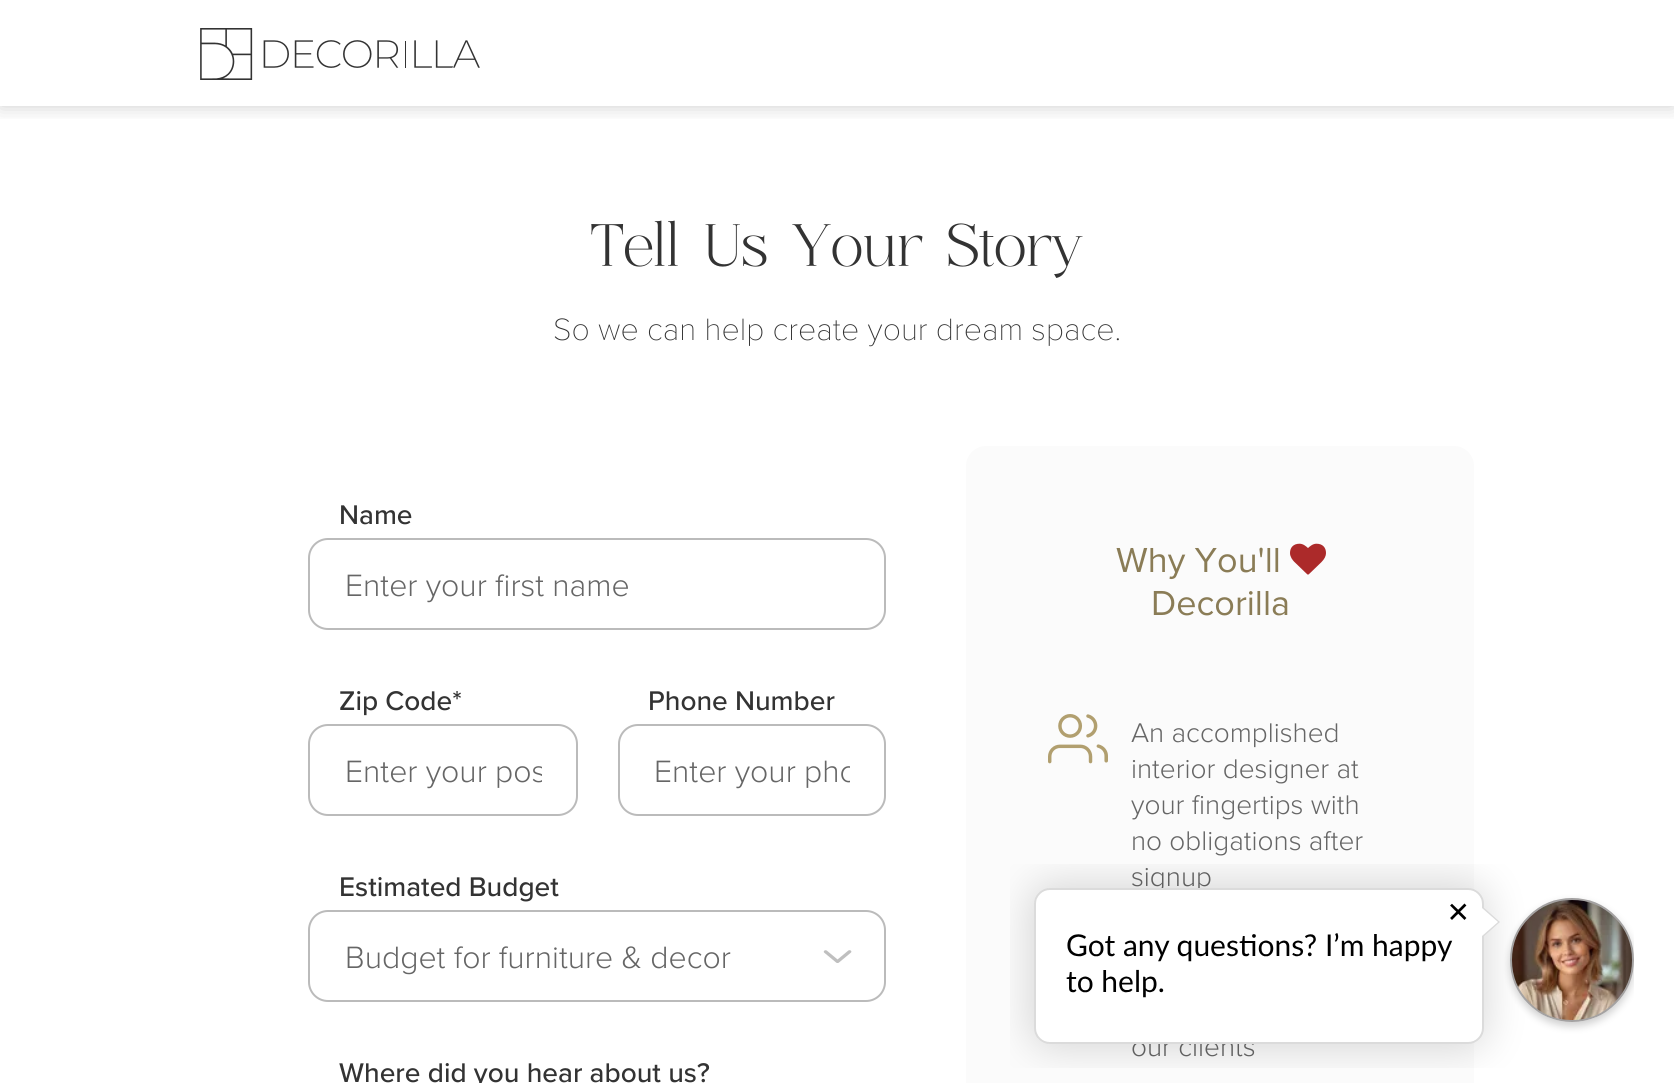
import math
import cairo

surface = cairo.ImageSurface(cairo.FORMAT_RGB24, 1674, 1083)
ctx = cairo.Context(surface)
options = cairo.FontOptions()
options.set_hint_metrics(cairo.HINT_METRICS_OFF)
options.set_hint_style(cairo.HINT_STYLE_NONE)
ctx.set_font_options(options)
ctx.set_miter_limit(4)


def set_color(code):
    ctx.set_source_rgb(*(v / 255 for v in bytes.fromhex(code[-6:])))


def draw_text(x, y, s, family, size, color, bold=False, italic=False):
    ctx.select_font_face(family, cairo.FONT_SLANT_ITALIC if italic else cairo.FONT_SLANT_NORMAL, cairo.FONT_WEIGHT_BOLD if bold else cairo.FONT_WEIGHT_NORMAL)
    ctx.set_font_size(size)
    set_color(color)
    ctx.move_to(x, y)
    ctx.show_text(s)


def rounded_rect(x, y, w, h, r):
    ctx.new_sub_path()
    for i, (u, v) in enumerate([(x + w - r, y + h - r), (x + r, y + h - r), (x + r, y + r), (x + w - r, y + r)]):
        ctx.arc(u, v, r, i * math.pi / 2, (i + 1) * math.pi / 2)
    ctx.close_path()


def draw_shadow(x, y, w, h, r, blur, alpha):
    ctx.push_group_with_content(cairo.CONTENT_ALPHA)
    ctx.set_operator(cairo.OPERATOR_SOURCE)
    for i in range(15, -16, -2):
        e = blur * i / 6
        if min(w, h) + 2 * e > 0:
            ctx.set_source_rgba(0, 0, 0, alpha * math.erfc((i - 1) / 8.5) / 2)
            rounded_rect(x - e, y - e, w + 2 * e, h + 2 * e, max(0, min(r + e + blur * .6, min(w, h) / 2 + e)))
            ctx.fill()
    ctx.mask(ctx.pop_group())


def draw_image(path, x, y, w, h):
    ctx.save()
    ctx.set_source_surface(cairo.ImageSurface.create_from_png(path), x, y)
    ctx.rectangle(x, y, w, h)
    ctx.fill()
    ctx.restore()


set_color("#ffffff")
ctx.paint()
ctx.save()
ctx.rectangle(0, 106, 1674, 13)
ctx.clip()
set_color("#000000")
draw_shadow(0, 0, 1674, 106, 0, 10, 0.2)
ctx.restore()
draw_image("assets/img1.png", 200, 28, 280, 52)
draw_text(591, 266, "Tell Us Your Story", "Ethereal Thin", 60, "#333333")
draw_text(553, 340, "So we can help create your dream space.", "Proxima Nova Thin", 32, "#333333")
draw_text(339, 524, "Name", "Proxima Nova Medium", 28, "#333333")
rounded_rect(309, 539, 576, 90, 19)
set_color("#bbbbbb")
ctx.stroke()
draw_text(345, 596, "Enter your first name", "Proxima Nova Light", 32, "#666666")
draw_text(339, 710, "Zip Code*", "Proxima Nova Medium", 28, "#333333")
rounded_rect(309, 725, 268, 90, 19)
set_color("#bbbbbb")
ctx.stroke()
ctx.save()
ctx.rectangle(344, 748, 198, 44)
ctx.clip()
draw_text(345, 782, "Enter your pos", "Proxima Nova Light", 32, "#666666")
ctx.restore()
draw_text(648, 710, "Phone Number", "Proxima Nova Medium", 28, "#333333")
rounded_rect(619, 725, 266, 90, 19)
set_color("#bbbbbb")
ctx.stroke()
ctx.save()
ctx.rectangle(654, 748, 196, 44)
ctx.clip()
draw_text(654, 782, "Enter your pho", "Proxima Nova Light", 32, "#666666")
ctx.restore()
draw_text(339, 896, "Estimated Budget", "Proxima Nova Medium", 28, "#333333")
draw_image("assets/img2.png", 823, 950, 29, 13)
rounded_rect(309, 911, 576, 90, 19)
set_color("#bbbbbb")
ctx.stroke()
draw_text(345, 968, "Budget for furniture & decor", "Proxima Nova Light", 32, "#666666")
draw_text(339, 1082, "Where did you hear about us?", "Proxima Nova Medium", 28, "#333333")
set_color("#fbfbfb")
rounded_rect(966, 446, 508, 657, 20)
ctx.fill()
draw_text(1116, 572, "Why You'll", "Proxima Nova", 36, "#8a7c56")
draw_image("assets/img3.png", 1290, 543, 36, 32)
draw_text(1151, 615, "Decorilla", "Proxima Nova", 36, "#8a7c56")
draw_image("assets/img4.png", 1048, 714, 60, 50)
draw_text(1131, 742, "An accomplished", "Proxima Nova Light", 28, "#666666")
draw_text(1131, 778, "interior designer at", "Proxima Nova Light", 28, "#666666")
draw_text(1131, 814, "your fingertips with", "Proxima Nova Light", 28, "#666666")
draw_text(1131, 850, "no obligations after", "Proxima Nova Light", 28, "#666666")
draw_text(1131, 886, "signup", "Proxima Nova Light", 28, "#666666")
draw_text(1131, 1056, "our clients", "Proxima Nova Light", 28, "#666666")
draw_image("assets/img5.png", 1010, 864, 624, 204)
surface.write_to_png("output.png")
